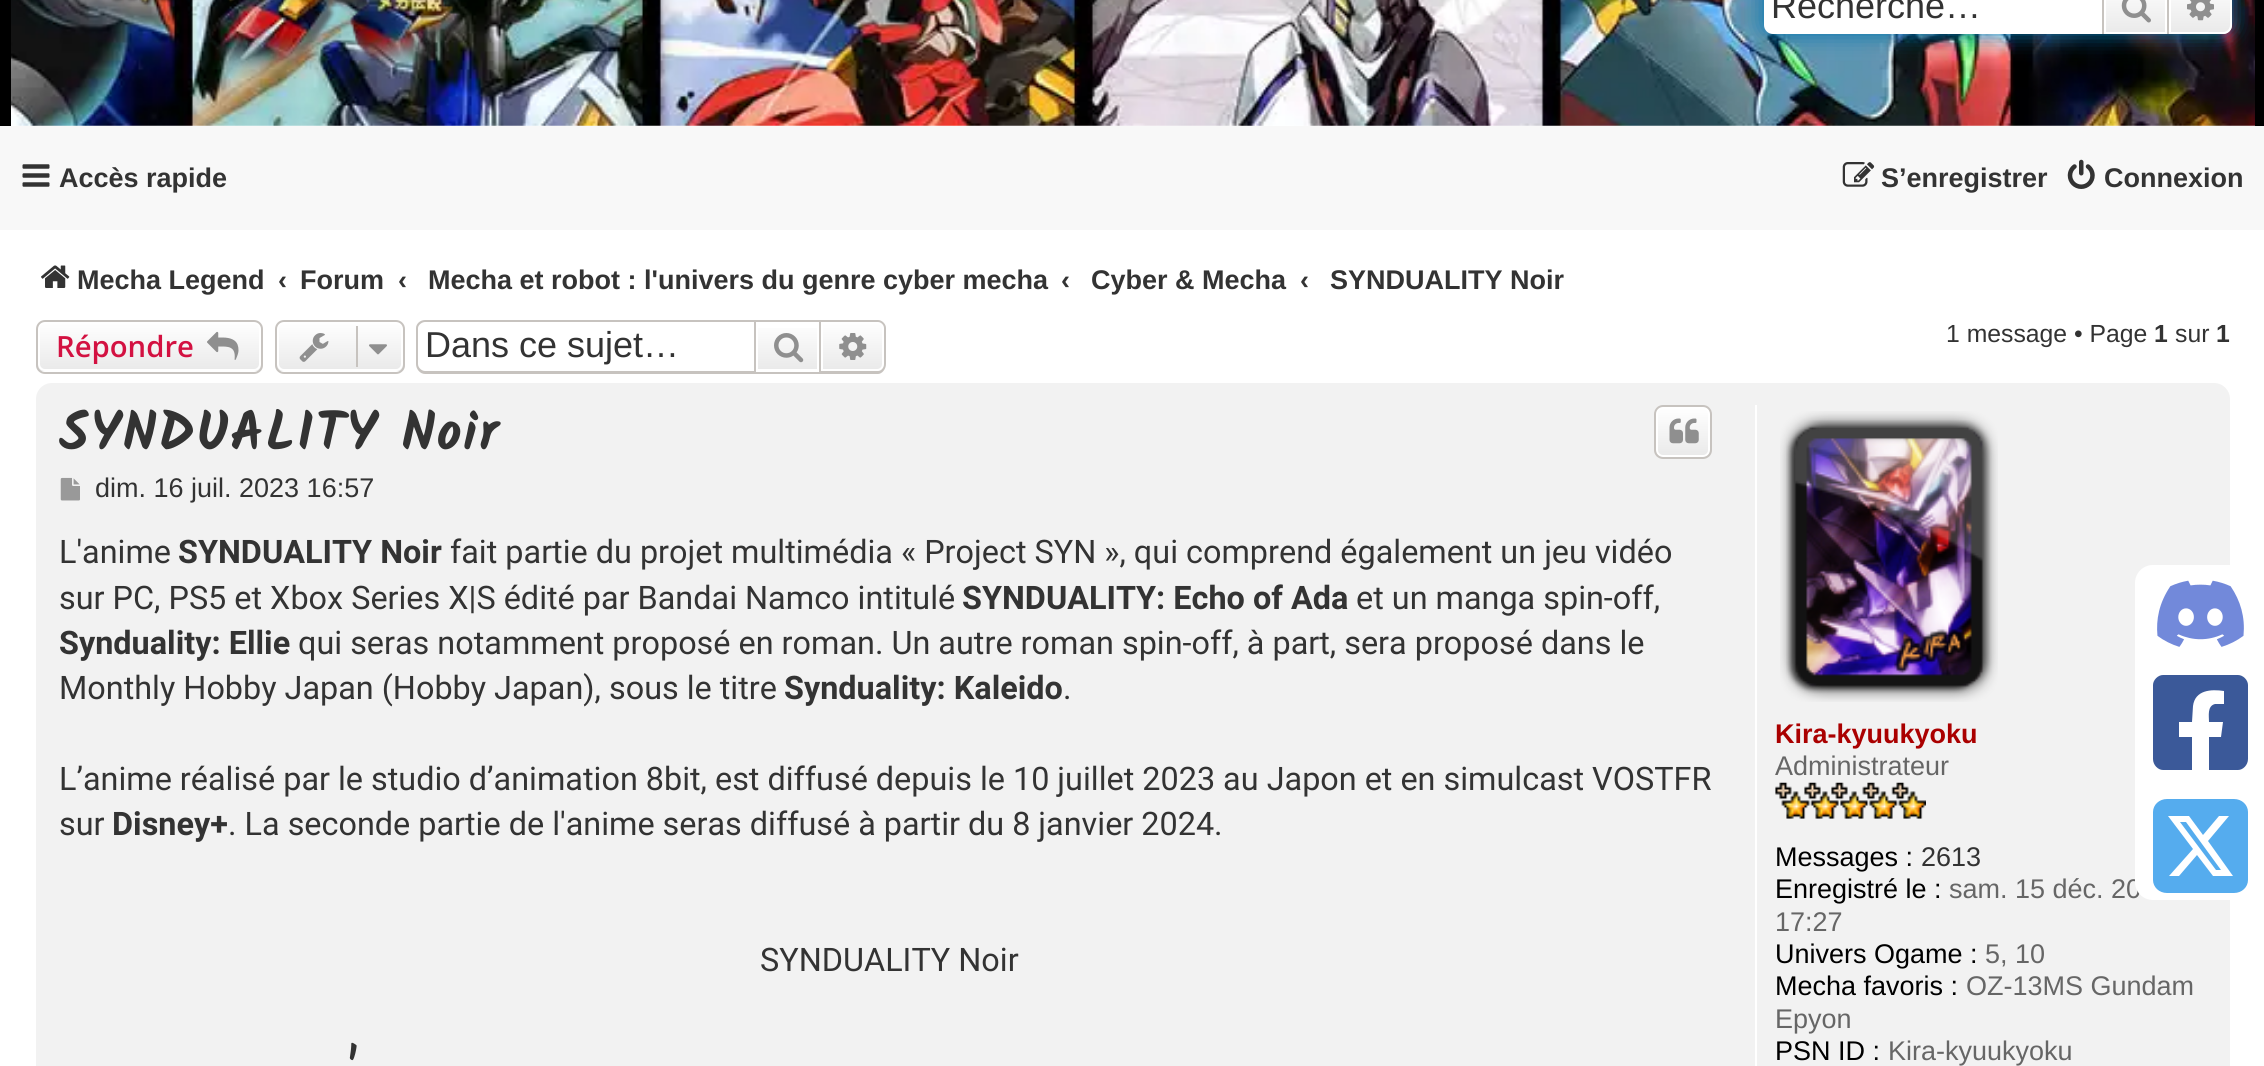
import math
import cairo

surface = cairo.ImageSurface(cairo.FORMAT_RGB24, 2264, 1066)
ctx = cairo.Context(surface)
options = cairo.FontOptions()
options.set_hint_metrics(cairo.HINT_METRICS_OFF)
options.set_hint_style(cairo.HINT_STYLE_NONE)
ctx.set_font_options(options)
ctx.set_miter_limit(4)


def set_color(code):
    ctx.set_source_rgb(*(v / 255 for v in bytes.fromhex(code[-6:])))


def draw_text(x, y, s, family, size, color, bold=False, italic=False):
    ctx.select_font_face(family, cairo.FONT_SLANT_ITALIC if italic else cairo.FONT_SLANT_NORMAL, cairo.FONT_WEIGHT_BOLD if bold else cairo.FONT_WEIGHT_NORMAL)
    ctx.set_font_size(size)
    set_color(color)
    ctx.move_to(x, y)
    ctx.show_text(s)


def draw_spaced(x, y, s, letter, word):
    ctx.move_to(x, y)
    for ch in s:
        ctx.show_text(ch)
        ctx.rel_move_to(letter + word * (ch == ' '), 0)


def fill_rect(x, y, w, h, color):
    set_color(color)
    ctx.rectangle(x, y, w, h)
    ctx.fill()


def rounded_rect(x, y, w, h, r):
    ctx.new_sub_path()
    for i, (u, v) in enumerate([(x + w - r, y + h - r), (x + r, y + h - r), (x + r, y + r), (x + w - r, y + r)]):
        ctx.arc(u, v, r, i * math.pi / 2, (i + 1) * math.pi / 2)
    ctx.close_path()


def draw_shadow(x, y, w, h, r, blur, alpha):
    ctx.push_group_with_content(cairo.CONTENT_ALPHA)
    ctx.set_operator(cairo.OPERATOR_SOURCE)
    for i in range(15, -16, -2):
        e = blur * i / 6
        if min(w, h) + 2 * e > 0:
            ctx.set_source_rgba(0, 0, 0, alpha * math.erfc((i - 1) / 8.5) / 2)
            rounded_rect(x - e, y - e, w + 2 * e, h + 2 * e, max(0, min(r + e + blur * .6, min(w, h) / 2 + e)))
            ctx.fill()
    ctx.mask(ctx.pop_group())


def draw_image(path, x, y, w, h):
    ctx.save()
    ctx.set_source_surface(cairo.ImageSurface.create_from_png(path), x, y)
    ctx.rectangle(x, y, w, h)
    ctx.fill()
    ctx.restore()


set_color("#ffffff")
ctx.paint()
draw_image("assets/img1.png", 11, 0, 2244, 126)
fill_rect(2255, 0, 9, 126, "#000000")
fill_rect(0, 0, 11, 126, "#000000")
draw_image("assets/img2.png", 111, 0, 353, 78)
set_color("#0075b0")
draw_shadow(1764, -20, 468, 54, 9, 11, 1)
set_color("#ffffff")
ctx.new_path()
ctx.move_to(1773, -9)
ctx.line_to(2102, -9)
ctx.line_to(2102, 34)
ctx.line_to(1773, 34)
ctx.curve_to(1768, 34, 1764, 30, 1764, 25)
ctx.line_to(1764, 0)
ctx.curve_to(1764, -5, 1768, -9, 1773, -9)
ctx.close_path()
ctx.fill()
draw_text(1771, 18, "Recherche…", "Liberation Sans", 36, "#333333")
gradient = cairo.LinearGradient(2135, -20, 2135, 34)
gradient.add_color_stop_rgba(0, 1, 1, 1, 1)
gradient.add_color_stop_rgba(1, 0.914, 0.914, 0.914, 1)
ctx.set_source(gradient)
ctx.rectangle(2106, 0, 59, 32)
ctx.fill()
ctx.rectangle(2105, -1, 61, 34)
set_color("#ffffff")
ctx.stroke()
fill_rect(2167, 0, 2, 34, "#c7c3bf")
fill_rect(2102, 0, 2, 34, "#c7c3bf")
draw_image("assets/img3.png", 2121, 0, 30, 23)
gradient = cairo.LinearGradient(2201, -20, 2201, 34)
gradient.add_color_stop_rgba(0, 1, 1, 1, 1)
gradient.add_color_stop_rgba(1, 0.914, 0.914, 0.914, 1)
ctx.set_source(gradient)
ctx.new_path()
ctx.move_to(2169, -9)
ctx.line_to(2223, -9)
ctx.curve_to(2228, -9, 2232, -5, 2232, 0)
ctx.line_to(2232, 25)
ctx.curve_to(2232, 30, 2228, 34, 2223, 34)
ctx.line_to(2169, 34)
ctx.close_path()
ctx.fill()
ctx.new_path()
ctx.move_to(2170, -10)
ctx.line_to(2223, -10)
ctx.curve_to(2227.5, -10, 2231, -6.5, 2231, -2)
ctx.line_to(2231, 25)
ctx.curve_to(2231, 29.5, 2227.5, 33, 2223, 33)
ctx.line_to(2170, 33)
ctx.close_path()
set_color("#ffffff")
ctx.stroke()
draw_image("assets/img4.png", 2187, 0, 27, 21)
fill_rect(0, 126, 2264, 104, "#f8f8f8")
draw_image("assets/img5.png", 22, 164, 28, 23)
draw_text(59, 187, "Accès rapide", "Liberation Sans", 27, "#333333", bold=True)
draw_image("assets/img6.png", 1842, 162, 33, 25)
draw_text(1881, 187, "S’enregistrer", "Liberation Sans", 27, "#333333", bold=True)
draw_image("assets/img7.png", 2067, 159, 28, 30)
draw_text(2104, 187, "Connexion", "Liberation Sans", 27, "#333333", bold=True)
draw_image("assets/img8.png", 41, 265, 29, 23)
draw_text(77, 289, "Mecha Legend", "Liberation Sans", 27, "#333333", bold=True)
draw_text(278, 289, "‹", "Liberation Sans", 27, "#333333", bold=True)
draw_text(300, 289, "Forum", "Liberation Sans", 27, "#333333", bold=True)
draw_text(398, 289, "‹", "Liberation Sans", 27, "#333333", bold=True)
draw_text(428, 289, "Mecha et robot : l'univers du genre cyber mecha", "Liberation Sans", 27, "#333333", bold=True)
draw_text(1061, 289, "‹", "Liberation Sans", 27, "#333333", bold=True)
draw_text(1091, 289, "Cyber & Mecha", "Liberation Sans", 27, "#333333", bold=True)
draw_text(1300, 289, "‹", "Liberation Sans", 27, "#333333", bold=True)
draw_text(1330, 289, "SYNDUALITY Noir", "Liberation Sans", 27, "#333333", bold=True)
ctx.save()
rounded_rect(36, 320, 227, 54, 9)
ctx.clip()
gradient = cairo.LinearGradient(150, 322, 150, 371)
gradient.add_color_stop_rgba(0, 1, 1, 1, 1)
gradient.add_color_stop_rgba(1, 0.914, 0.914, 0.914, 1)
ctx.set_source(gradient)
ctx.rectangle(36, 322, 227, 49)
ctx.fill()
ctx.restore()
rounded_rect(39, 323, 221, 47, 6)
set_color("#ffffff")
ctx.stroke()
rounded_rect(37, 321, 225, 52, 8)
set_color("#c7c3bf")
ctx.stroke()
draw_text(56, 357, "Répondre", "Open Sans SemiBold", 29.25, "#d31141")
draw_image("assets/img9.png", 207, 331, 32, 29)
ctx.save()
rounded_rect(275, 320, 130, 54, 9)
ctx.clip()
gradient = cairo.LinearGradient(340, 322, 340, 371)
gradient.add_color_stop_rgba(0, 1, 1, 1, 1)
gradient.add_color_stop_rgba(1, 0.914, 0.914, 0.914, 1)
ctx.set_source(gradient)
ctx.rectangle(275, 322, 130, 49)
ctx.fill()
ctx.restore()
rounded_rect(278, 323, 124, 47, 6)
set_color("#ffffff")
ctx.stroke()
rounded_rect(276, 321, 128, 52, 8)
set_color("#c7c3bf")
ctx.stroke()
draw_image("assets/img10.png", 299, 333, 30, 29)
fill_rect(356, 326, 2, 41, "#c7c3bf")
draw_image("assets/img11.png", 369, 344, 18, 11)
ctx.set_fill_rule(cairo.FILL_RULE_EVEN_ODD)
ctx.new_path()
ctx.move_to(425, 320)
ctx.line_to(754, 320)
ctx.line_to(754, 374)
ctx.line_to(425, 374)
ctx.curve_to(420, 374, 416, 369, 416, 364)
ctx.line_to(416, 328)
ctx.curve_to(416, 324, 420, 320, 425, 320)
ctx.close_path()
ctx.move_to(425, 322)
ctx.line_to(754, 322)
ctx.line_to(754, 371)
ctx.line_to(425, 371)
ctx.curve_to(422, 371, 418, 368, 418, 364)
ctx.line_to(418, 328)
ctx.curve_to(418, 325, 422, 322, 425, 322)
ctx.close_path()
ctx.fill()
draw_text(425, 357, "Dans ce sujet…", "Liberation Sans", 36, "#333333")
gradient = cairo.LinearGradient(788, 322, 788, 371)
gradient.add_color_stop_rgba(0, 1, 1, 1, 1)
gradient.add_color_stop_rgba(1, 0.914, 0.914, 0.914, 1)
ctx.set_source(gradient)
ctx.rectangle(758, 328, 59, 41)
ctx.fill()
ctx.rectangle(755, 321, 65, 52)
set_color("#c7c3bf")
ctx.stroke()
draw_image("assets/img12.png", 774, 333, 30, 30)
gradient = cairo.LinearGradient(853, 322, 853, 371)
gradient.add_color_stop_rgba(0, 1, 1, 1, 1)
gradient.add_color_stop_rgba(1, 0.914, 0.914, 0.914, 1)
ctx.set_source(gradient)
ctx.new_path()
ctx.move_to(822, 323)
ctx.line_to(877, 323)
ctx.curve_to(880.5, 323, 883, 325.5, 883, 329)
ctx.line_to(883, 364)
ctx.curve_to(883, 367.5, 880.5, 370, 877, 370)
ctx.line_to(822, 370)
ctx.close_path()
ctx.fill_preserve()
set_color("#ffffff")
ctx.stroke()
set_color("#c7c3bf")
ctx.new_path()
ctx.move_to(821, 320)
ctx.line_to(878, 320)
ctx.curve_to(882, 320, 886, 324, 886, 328)
ctx.line_to(886, 364)
ctx.curve_to(886, 369, 882, 374, 878, 374)
ctx.line_to(821, 374)
ctx.close_path()
ctx.move_to(821, 322)
ctx.line_to(878, 322)
ctx.curve_to(881, 322, 884, 325, 884, 328)
ctx.line_to(884, 364)
ctx.curve_to(884, 368, 881, 371, 878, 371)
ctx.line_to(821, 371)
ctx.close_path()
ctx.fill()
draw_image("assets/img13.png", 839, 333, 28, 27)
draw_text(1946, 342, "1 message • Page", "Liberation Sans", 24.75, "#333333")
draw_text(2154, 342, "1", "Liberation Sans", 24.75, "#333333", bold=True)
draw_text(2175, 342, "sur", "Liberation Sans", 24.75, "#333333")
draw_text(2216, 342, "1", "Liberation Sans", 24.75, "#333333", bold=True)
set_color("#f2f2f2")
rounded_rect(36, 383, 2194, 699, 16)
ctx.fill()
ctx.select_font_face("Kalam", cairo.FONT_SLANT_NORMAL, cairo.FONT_WEIGHT_BOLD)
ctx.set_font_size(54)
set_color("#333333")
draw_spaced(59, 450, "SYNDUALITY Noir", 1.75, 0)
ctx.save()
ctx.set_fill_rule(cairo.FILL_RULE_WINDING)
rounded_rect(1654, 405, 58, 54, 9)
ctx.clip()
gradient = cairo.LinearGradient(1683, 407, 1683, 457)
gradient.add_color_stop_rgba(0, 1, 1, 1, 1)
gradient.add_color_stop_rgba(1, 0.914, 0.914, 0.914, 1)
ctx.set_source(gradient)
ctx.rectangle(1654, 407, 58, 50)
ctx.fill()
ctx.restore()
rounded_rect(1657, 408, 52, 48, 6)
set_color("#ffffff")
ctx.stroke()
rounded_rect(1655, 406, 56, 52, 8)
set_color("#c7c3bf")
ctx.stroke()
draw_image("assets/img14.png", 1669, 418, 30, 26)
draw_image("assets/img15.png", 60, 477, 20, 24)
draw_text(95, 497, "dim. 16 juil. 2023 16:57", "Liberation Sans", 27, "#333333")
draw_text(59, 563, "L'anime", "Roboto", 32.4, "#333333")
draw_text(178, 563, "SYNDUALITY Noir", "Roboto", 32.4, "#333333", bold=True)
draw_text(450, 563, "fait partie du projet multimédia « Project SYN », qui comprend également un jeu vidéo", "Roboto", 32.4, "#333333")
draw_text(59, 609, "sur PC, PS5 et Xbox Series X|S édité par Bandai Namco intitulé", "Roboto", 32.4, "#333333")
draw_text(962, 609, "SYNDUALITY: Echo of Ada", "Roboto", 32.4, "#333333", bold=True)
draw_text(1356, 609, "et un manga spin-off,", "Roboto", 32.4, "#333333")
draw_text(59, 654, "Synduality: Ellie", "Roboto", 32.4, "#333333", bold=True)
draw_text(298, 654, "qui seras notamment proposé en roman. Un autre roman spin-off, à part, sera proposé dans le", "Roboto", 32.4, "#333333")
draw_text(59, 699, "Monthly Hobby Japan (Hobby Japan), sous le titre", "Roboto", 32.4, "#333333")
draw_text(784, 699, "Synduality: Kaleido", "Roboto", 32.4, "#333333", bold=True)
draw_text(1063, 699, ".", "Roboto", 32.4, "#333333")
draw_text(59, 790, "L’anime réalisé par le studio d’animation 8bit, est diffusé depuis le 10 juillet 2023 au Japon et en simulcast VOSTFR", "Roboto", 32.4, "#333333")
draw_text(59, 835, "sur", "Roboto", 32.4, "#333333")
draw_text(112, 835, "Disney+", "Roboto", 32.4, "#333333", bold=True)
draw_text(228, 835, ". La seconde partie de l'anime seras diffusé à partir du 8 janvier 2024.", "Roboto", 32.4, "#333333")
draw_text(760, 971, "SYNDUALITY Noir", "Roboto", 32.4, "#333333")
draw_text(344, 1086, "'", "Kalam", 49, "#333333", bold=True)
fill_rect(1755, 405, 2, 661, "#ffffff")
draw_image("assets/img16.png", 1780, 411, 218, 291)
draw_text(1775, 743, "Kira-kyuukyoku", "Liberation Sans", 27, "#aa0000", bold=True)
draw_text(1775, 775, "Administrateur", "Liberation Sans", 27, "#666666")
draw_image("assets/img17.png", 1775, 782, 151, 37)
draw_text(1775, 866, "Messages :", "Liberation Sans", 27, "#000000")
draw_text(1921, 866, "2613", "Liberation Sans", 27, "#333333")
draw_text(1775, 898, "Enregistré le :", "Liberation Sans", 27, "#000000")
draw_text(1949, 898, "sam. 15 déc. 20", "Liberation Sans", 27, "#666666")
draw_text(1775, 931, "17:27", "Liberation Sans", 27, "#666666")
draw_text(1775, 963, "Univers Ogame :", "Liberation Sans", 27, "#000000")
draw_text(1985, 963, "5, 10", "Liberation Sans", 27, "#666666")
draw_text(1775, 995, "Mecha favoris :", "Liberation Sans", 27, "#000000")
draw_text(1966, 995, "OZ-13MS Gundam", "Liberation Sans", 27, "#666666")
draw_text(1775, 1028, "Epyon", "Liberation Sans", 27, "#666666")
draw_text(1775, 1060, "PSN ID :", "Liberation Sans", 27, "#000000")
draw_text(1888, 1060, "Kira-kyuukyoku", "Liberation Sans", 27, "#666666")
set_color("#ffffff")
ctx.new_path()
ctx.move_to(2153, 565)
ctx.line_to(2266, 565)
ctx.line_to(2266, 900)
ctx.line_to(2153, 900)
ctx.curve_to(2143, 900, 2135, 892, 2135, 882)
ctx.line_to(2135, 583)
ctx.curve_to(2135, 573, 2143, 565, 2153, 565)
ctx.close_path()
ctx.fill()
draw_image("assets/img18.png", 2157, 580, 87, 67)
set_color("#3b5999")
ctx.set_fill_rule(cairo.FILL_RULE_WINDING)
ctx.new_path()
ctx.move_to(2238, 675)
ctx.line_to(2163, 675)
ctx.curve_to(2158, 675, 2153, 680, 2153, 685)
ctx.line_to(2153, 759)
ctx.curve_to(2153, 765, 2158, 770, 2163, 770)
ctx.line_to(2192, 770)
ctx.line_to(2192, 737)
ctx.line_to(2179, 737)
ctx.line_to(2179, 722)
ctx.line_to(2192, 722)
ctx.line_to(2193, 706)
ctx.curve_to(2195, 690, 2211, 689, 2224, 691)
ctx.line_to(2224, 704)
ctx.line_to(2215, 704)
ctx.curve_to(2207, 706, 2209, 716, 2209, 722)
ctx.line_to(2223, 722)
ctx.line_to(2221, 737)
ctx.line_to(2209, 737)
ctx.line_to(2209, 770)
ctx.line_to(2238, 770)
ctx.curve_to(2243, 770, 2248, 765, 2248, 759)
ctx.line_to(2248, 685)
ctx.curve_to(2248, 680, 2243, 675, 2238, 675)
ctx.close_path()
ctx.fill()
set_color("#55acee")
ctx.new_path()
ctx.move_to(2167, 799)
ctx.curve_to(2159, 799, 2153, 805, 2153, 812)
ctx.line_to(2153, 880)
ctx.curve_to(2153, 887, 2159, 893, 2167, 893)
ctx.line_to(2234, 893)
ctx.curve_to(2242, 893, 2248, 887, 2248, 880)
ctx.line_to(2248, 812)
ctx.curve_to(2248, 805, 2242, 799, 2234, 799)
ctx.close_path()
ctx.move_to(2229, 816)
ctx.line_to(2208, 841)
ctx.line_to(2233, 876)
ctx.line_to(2213, 876)
ctx.line_to(2197, 855)
ctx.line_to(2179, 876)
ctx.line_to(2169, 876)
ctx.line_to(2193, 849)
ctx.line_to(2168, 816)
ctx.line_to(2189, 816)
ctx.line_to(2203, 835)
ctx.line_to(2219, 816)
ctx.close_path()
ctx.move_to(2221, 870)
ctx.line_to(2186, 822)
ctx.line_to(2180, 822)
ctx.line_to(2216, 870)
ctx.close_path()
ctx.fill()
surface.write_to_png("output.png")
